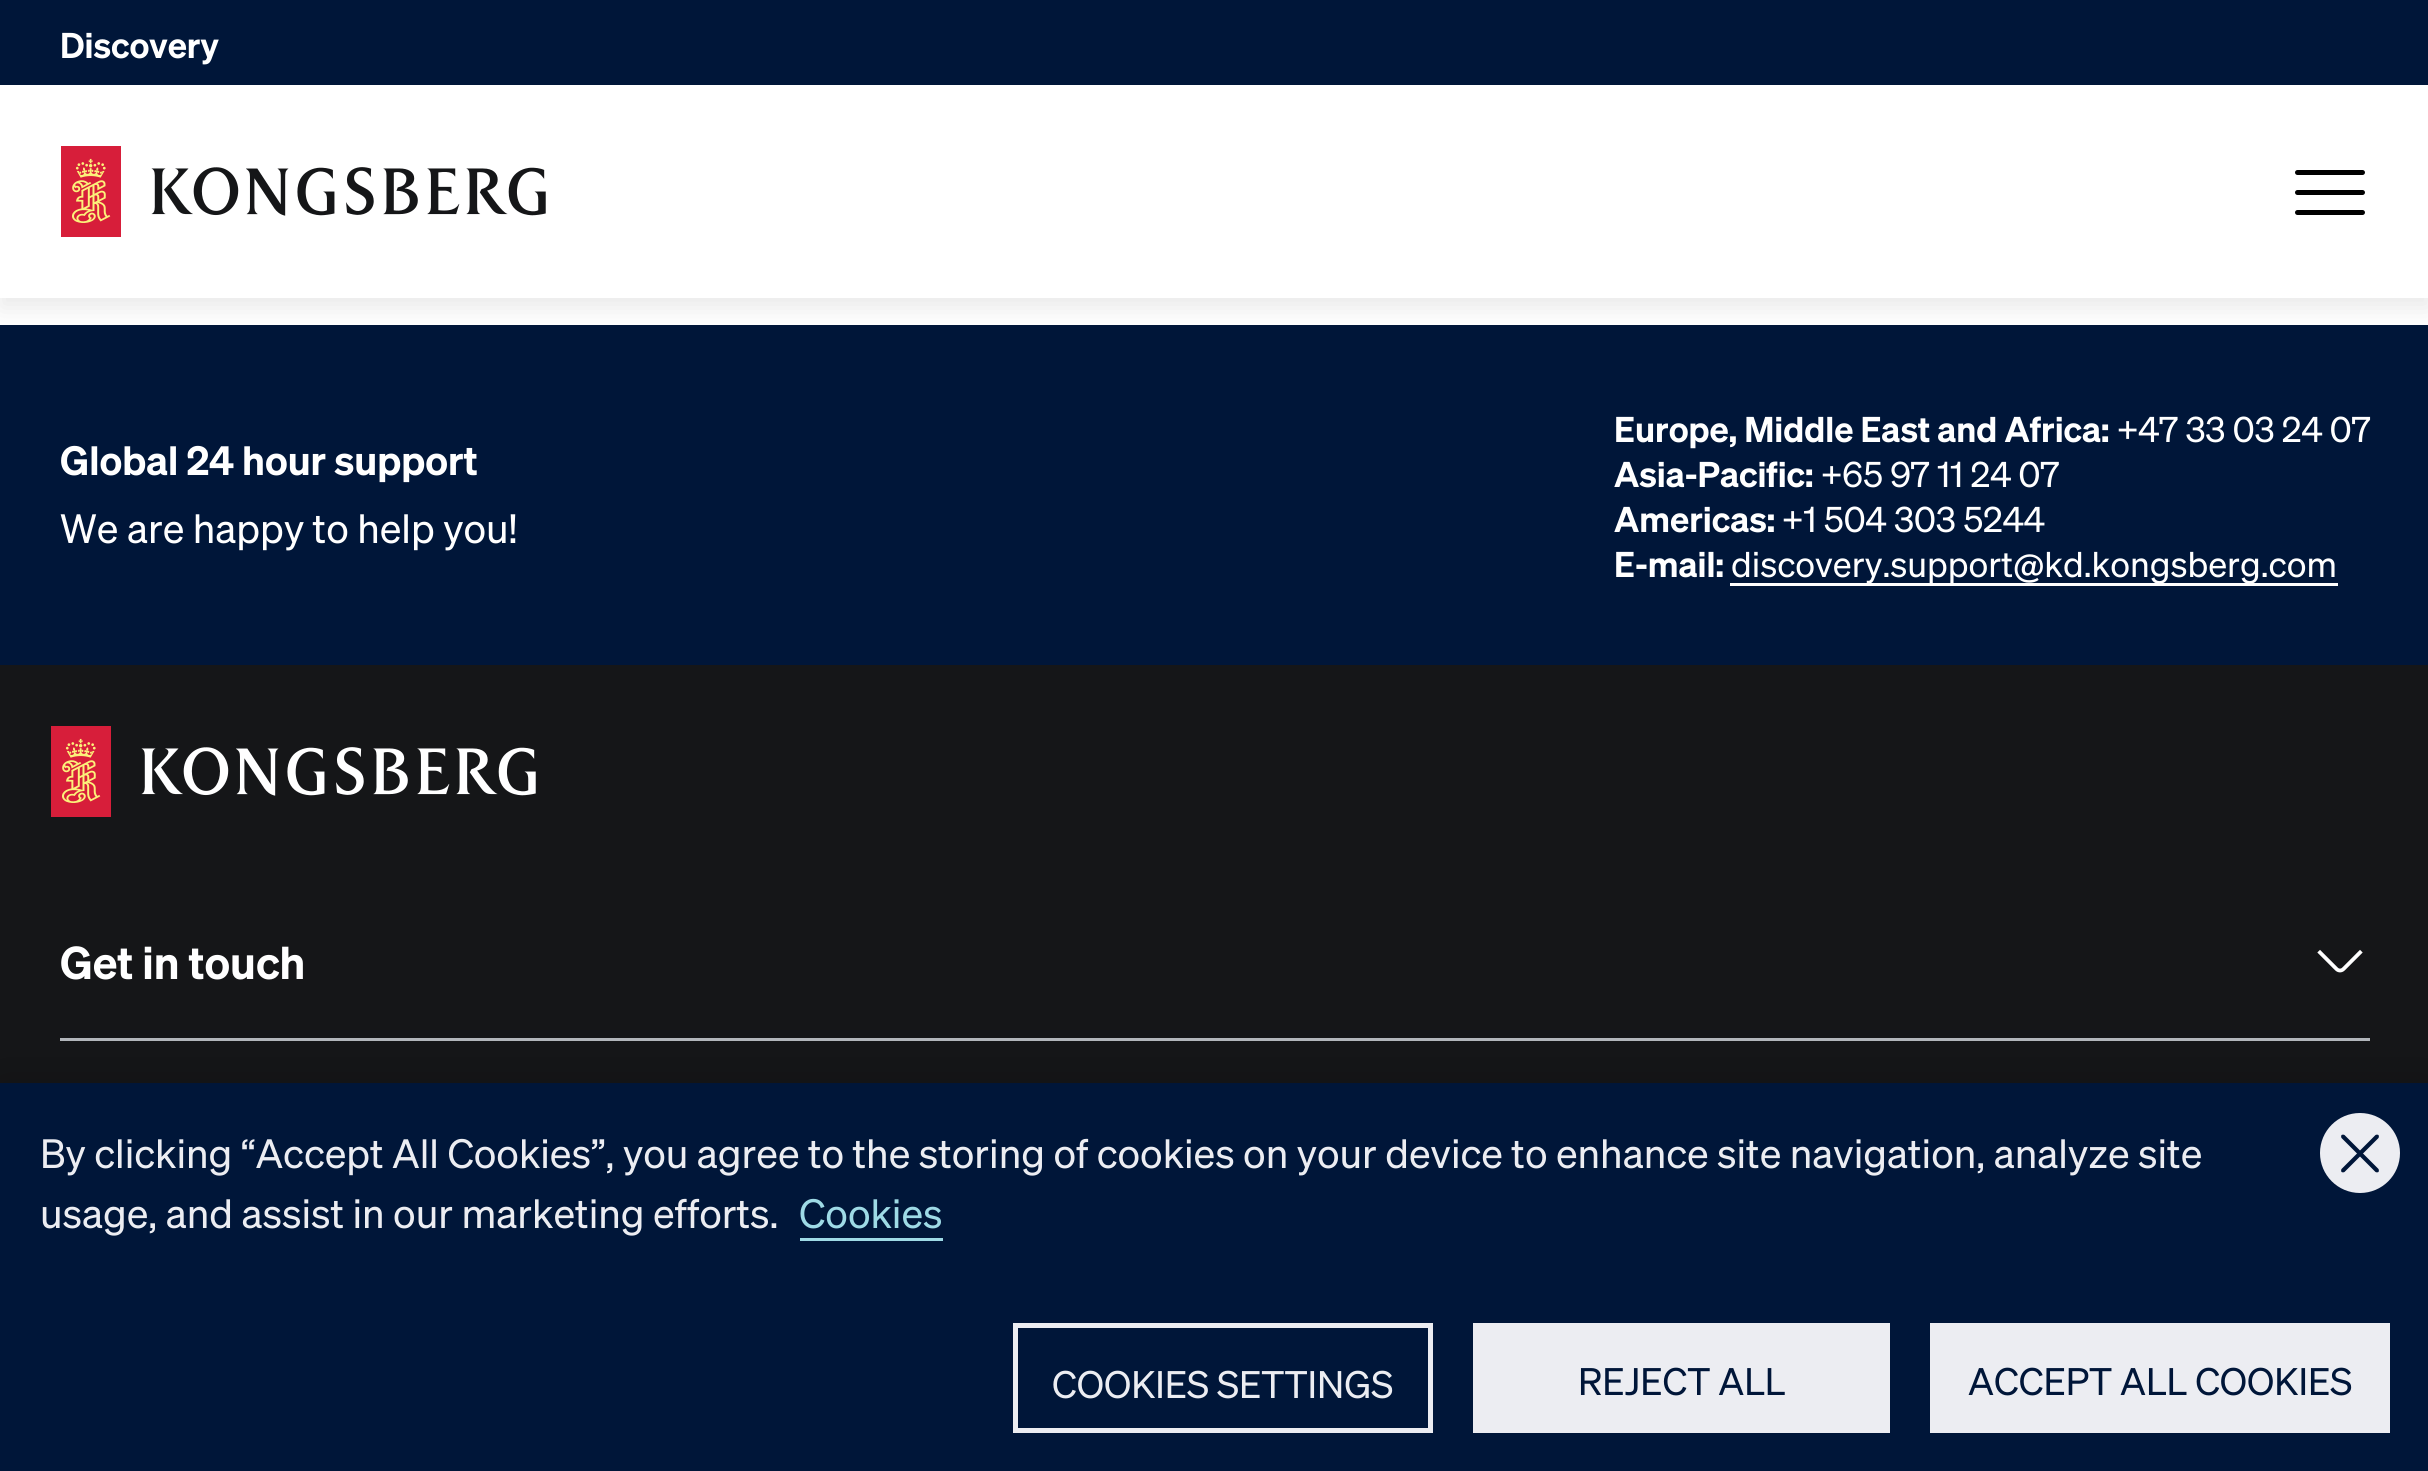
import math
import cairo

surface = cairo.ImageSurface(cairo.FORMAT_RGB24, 2428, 1471)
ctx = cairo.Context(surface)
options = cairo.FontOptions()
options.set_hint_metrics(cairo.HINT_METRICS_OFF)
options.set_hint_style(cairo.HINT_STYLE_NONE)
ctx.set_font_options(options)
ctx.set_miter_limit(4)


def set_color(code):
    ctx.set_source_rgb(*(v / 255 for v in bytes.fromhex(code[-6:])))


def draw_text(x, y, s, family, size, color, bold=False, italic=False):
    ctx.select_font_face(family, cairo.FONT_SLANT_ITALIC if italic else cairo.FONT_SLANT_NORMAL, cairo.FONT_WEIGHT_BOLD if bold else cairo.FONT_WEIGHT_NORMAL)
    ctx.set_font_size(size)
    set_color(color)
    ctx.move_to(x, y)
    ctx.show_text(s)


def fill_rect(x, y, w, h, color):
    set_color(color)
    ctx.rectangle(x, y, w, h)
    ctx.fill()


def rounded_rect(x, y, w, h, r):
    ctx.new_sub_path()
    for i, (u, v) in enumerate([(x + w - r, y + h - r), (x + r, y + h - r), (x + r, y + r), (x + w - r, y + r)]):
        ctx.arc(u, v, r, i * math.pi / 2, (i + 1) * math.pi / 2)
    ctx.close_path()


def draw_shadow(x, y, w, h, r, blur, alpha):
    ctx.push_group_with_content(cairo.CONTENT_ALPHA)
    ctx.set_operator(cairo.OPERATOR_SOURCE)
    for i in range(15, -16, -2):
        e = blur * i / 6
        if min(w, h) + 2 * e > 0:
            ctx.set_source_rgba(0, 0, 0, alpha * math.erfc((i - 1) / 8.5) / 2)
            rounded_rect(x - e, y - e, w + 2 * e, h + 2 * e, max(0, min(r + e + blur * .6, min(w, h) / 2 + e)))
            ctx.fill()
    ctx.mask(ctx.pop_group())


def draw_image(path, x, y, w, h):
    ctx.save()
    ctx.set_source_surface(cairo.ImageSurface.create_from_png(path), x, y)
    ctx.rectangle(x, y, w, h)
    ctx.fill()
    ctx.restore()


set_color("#ffffff")
ctx.paint()
fill_rect(0, 325, 2428, 340, "#001639")
set_color("#000000")
draw_shadow(0, 10, 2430, 298, 0, 12.5, 0.09)
fill_rect(0, 0, 2428, 85, "#001639")
draw_text(60, 58, "Discovery", "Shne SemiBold", 35, "#ffffff")
fill_rect(0, 85, 2428, 213, "#ffffff")
draw_image("assets/img1.png", 61, 146, 485, 91)
set_color("#000000")
rounded_rect(2295, 190, 70, 5, 2.5)
ctx.fill()
rounded_rect(2295, 170, 70, 5, 2.5)
ctx.fill()
rounded_rect(2295, 210, 70, 5, 2.5)
ctx.fill()
draw_text(60, 475, "Global 24 hour support", "Shne SemiBold", 40, "#ffffff")
draw_text(60, 543, "We are happy to help you!", "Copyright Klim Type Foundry", 40, "#ffffff")
draw_text(1614, 442, "Europe, Middle East and Africa:", "Shne SemiBold", 35, "#ffffff")
draw_text(2117, 442, "+47 33 03 24 07", "Copyright Klim Type Foundry", 35, "#ffffff")
draw_text(1614, 487, "Asia-Pacific:", "Shne SemiBold", 35, "#ffffff")
draw_text(1821, 487, "+65 97 11 24 07", "Copyright Klim Type Foundry", 35, "#ffffff")
draw_text(1614, 532, "Americas:", "Shne SemiBold", 35, "#ffffff")
draw_text(1782, 532, "+1 504 303 5244", "Copyright Klim Type Foundry", 35, "#ffffff")
draw_text(1614, 577, "E-mail:", "Shne SemiBold", 35, "#ffffff")
fill_rect(1730, 583, 608, 3, "#ffffff")
draw_text(1731, 577, "discovery.support@kd.kongsberg.com", "Copyright Klim Type Foundry", 35, "#ffffff")
fill_rect(0, 665, 2428, 418, "#151618")
draw_image("assets/img2.png", 51, 726, 485, 91)
fill_rect(60, 1038, 2310, 3, "#b3b7bc")
draw_text(60, 979, "Get in touch", "Shne SemiBold", 45, "#ffffff")
ctx.new_path()
ctx.move_to(2320, 952.5)
ctx.line_to(2336.5, 969)
ctx.curve_to(2338.5, 971, 2341.5, 971, 2343.5, 969)
ctx.line_to(2360, 952.5)
ctx.set_line_width(3.8)
ctx.set_line_cap(cairo.LINE_CAP_SQUARE)
ctx.stroke()
set_color("#000000")
draw_shadow(0, 1083, 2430, 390, 0, 22.5, 0.2)
fill_rect(0, 1083, 2428, 388, "#001639")
draw_text(40, 1168, "By clicking “Accept All Cookies”, you agree to the storing of cookies on your device to enhance site navigation, analyze site", "Copyright Klim Type Foundry", 40, "#ecedf2")
draw_text(40, 1228, "usage, and assist in our marketing efforts.", "Copyright Klim Type Foundry", 40, "#ecedf2")
draw_text(799, 1228, "Cookies", "Copyright Klim Type Foundry", 40, "#9edae6")
fill_rect(800, 1238, 143, 3, "#9edae6")
ctx.rectangle(1015.5, 1325.5, 415, 105)
set_color("#ecedf2")
ctx.set_line_width(5)
ctx.set_line_cap(cairo.LINE_CAP_BUTT)
ctx.stroke()
draw_text(1052, 1398, "COOKIES SETTINGS", "Copyright Klim Type Foundry", 37.5, "#ecedf2")
fill_rect(1473, 1323, 417, 110, "#ecedf2")
draw_text(1578, 1395, "REJECT ALL", "Copyright Klim Type Foundry", 37.5, "#001639")
fill_rect(1930, 1323, 460, 110, "#ecedf2")
draw_text(1968, 1395, "ACCEPT ALL COOKIES", "Copyright Klim Type Foundry", 37.5, "#001639")
set_color("#ecedf2")
ctx.new_path()
ctx.arc(2360, 1153, 40, 0, 2 * math.pi)
ctx.fill()
set_color("#001639")
ctx.new_path()
ctx.move_to(2378.5, 1135)
ctx.curve_to(2379, 1136, 2379, 1137, 2378.5, 1138)
ctx.line_to(2344.5, 1172)
ctx.curve_to(2343.5, 1172.5, 2342.5, 1172.5, 2341.5, 1172)
ctx.curve_to(2341, 1171, 2341, 1170, 2341.5, 1169)
ctx.line_to(2375.5, 1135)
ctx.curve_to(2376.5, 1134.5, 2377.5, 1134.5, 2378.5, 1135)
ctx.close_path()
ctx.fill()
ctx.new_path()
ctx.move_to(2341.5, 1135)
ctx.curve_to(2342.5, 1134.5, 2343.5, 1134.5, 2344.5, 1135)
ctx.line_to(2378.5, 1169)
ctx.curve_to(2379, 1170, 2379, 1171, 2378.5, 1172)
ctx.curve_to(2377.5, 1172.5, 2376.5, 1172.5, 2375.5, 1172)
ctx.line_to(2341.5, 1138)
ctx.curve_to(2341, 1137, 2341, 1136, 2341.5, 1135)
ctx.close_path()
ctx.fill()
surface.write_to_png("output.png")
